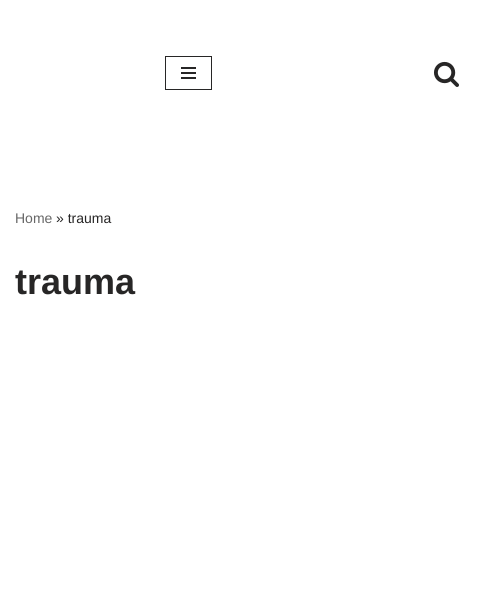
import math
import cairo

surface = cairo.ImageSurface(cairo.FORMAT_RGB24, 485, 608)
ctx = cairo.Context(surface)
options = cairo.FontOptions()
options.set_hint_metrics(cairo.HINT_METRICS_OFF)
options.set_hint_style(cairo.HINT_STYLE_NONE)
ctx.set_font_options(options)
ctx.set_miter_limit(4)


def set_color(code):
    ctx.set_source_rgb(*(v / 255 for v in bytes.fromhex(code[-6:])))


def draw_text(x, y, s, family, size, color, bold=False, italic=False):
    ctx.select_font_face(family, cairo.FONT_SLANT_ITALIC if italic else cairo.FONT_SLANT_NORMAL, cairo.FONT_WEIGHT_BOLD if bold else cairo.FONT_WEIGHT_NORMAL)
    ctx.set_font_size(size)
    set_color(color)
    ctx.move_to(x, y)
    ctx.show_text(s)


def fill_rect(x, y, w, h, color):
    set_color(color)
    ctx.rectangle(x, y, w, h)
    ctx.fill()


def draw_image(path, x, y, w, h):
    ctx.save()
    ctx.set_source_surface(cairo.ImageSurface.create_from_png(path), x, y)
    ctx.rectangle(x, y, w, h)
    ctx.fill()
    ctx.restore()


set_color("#ffffff")
ctx.paint()
ctx.rectangle(165.5, 56.5, 46, 33)
set_color("#272626")
ctx.set_line_width(1)
ctx.stroke()
fill_rect(181, 67, 15, 2, "#272626")
fill_rect(181, 72, 15, 2, "#272626")
fill_rect(181, 77, 15, 2, "#272626")
draw_image("assets/img1.png", 434, 61, 25, 26)
draw_text(15, 223, "Home", "Liberation Sans", 14, "#676767")
draw_text(56, 223, "» trauma", "Liberation Sans", 14, "#272626")
draw_text(15, 294, "trauma", "Liberation Sans", 36, "#272626", bold=True)
surface.write_to_png("output.png")
